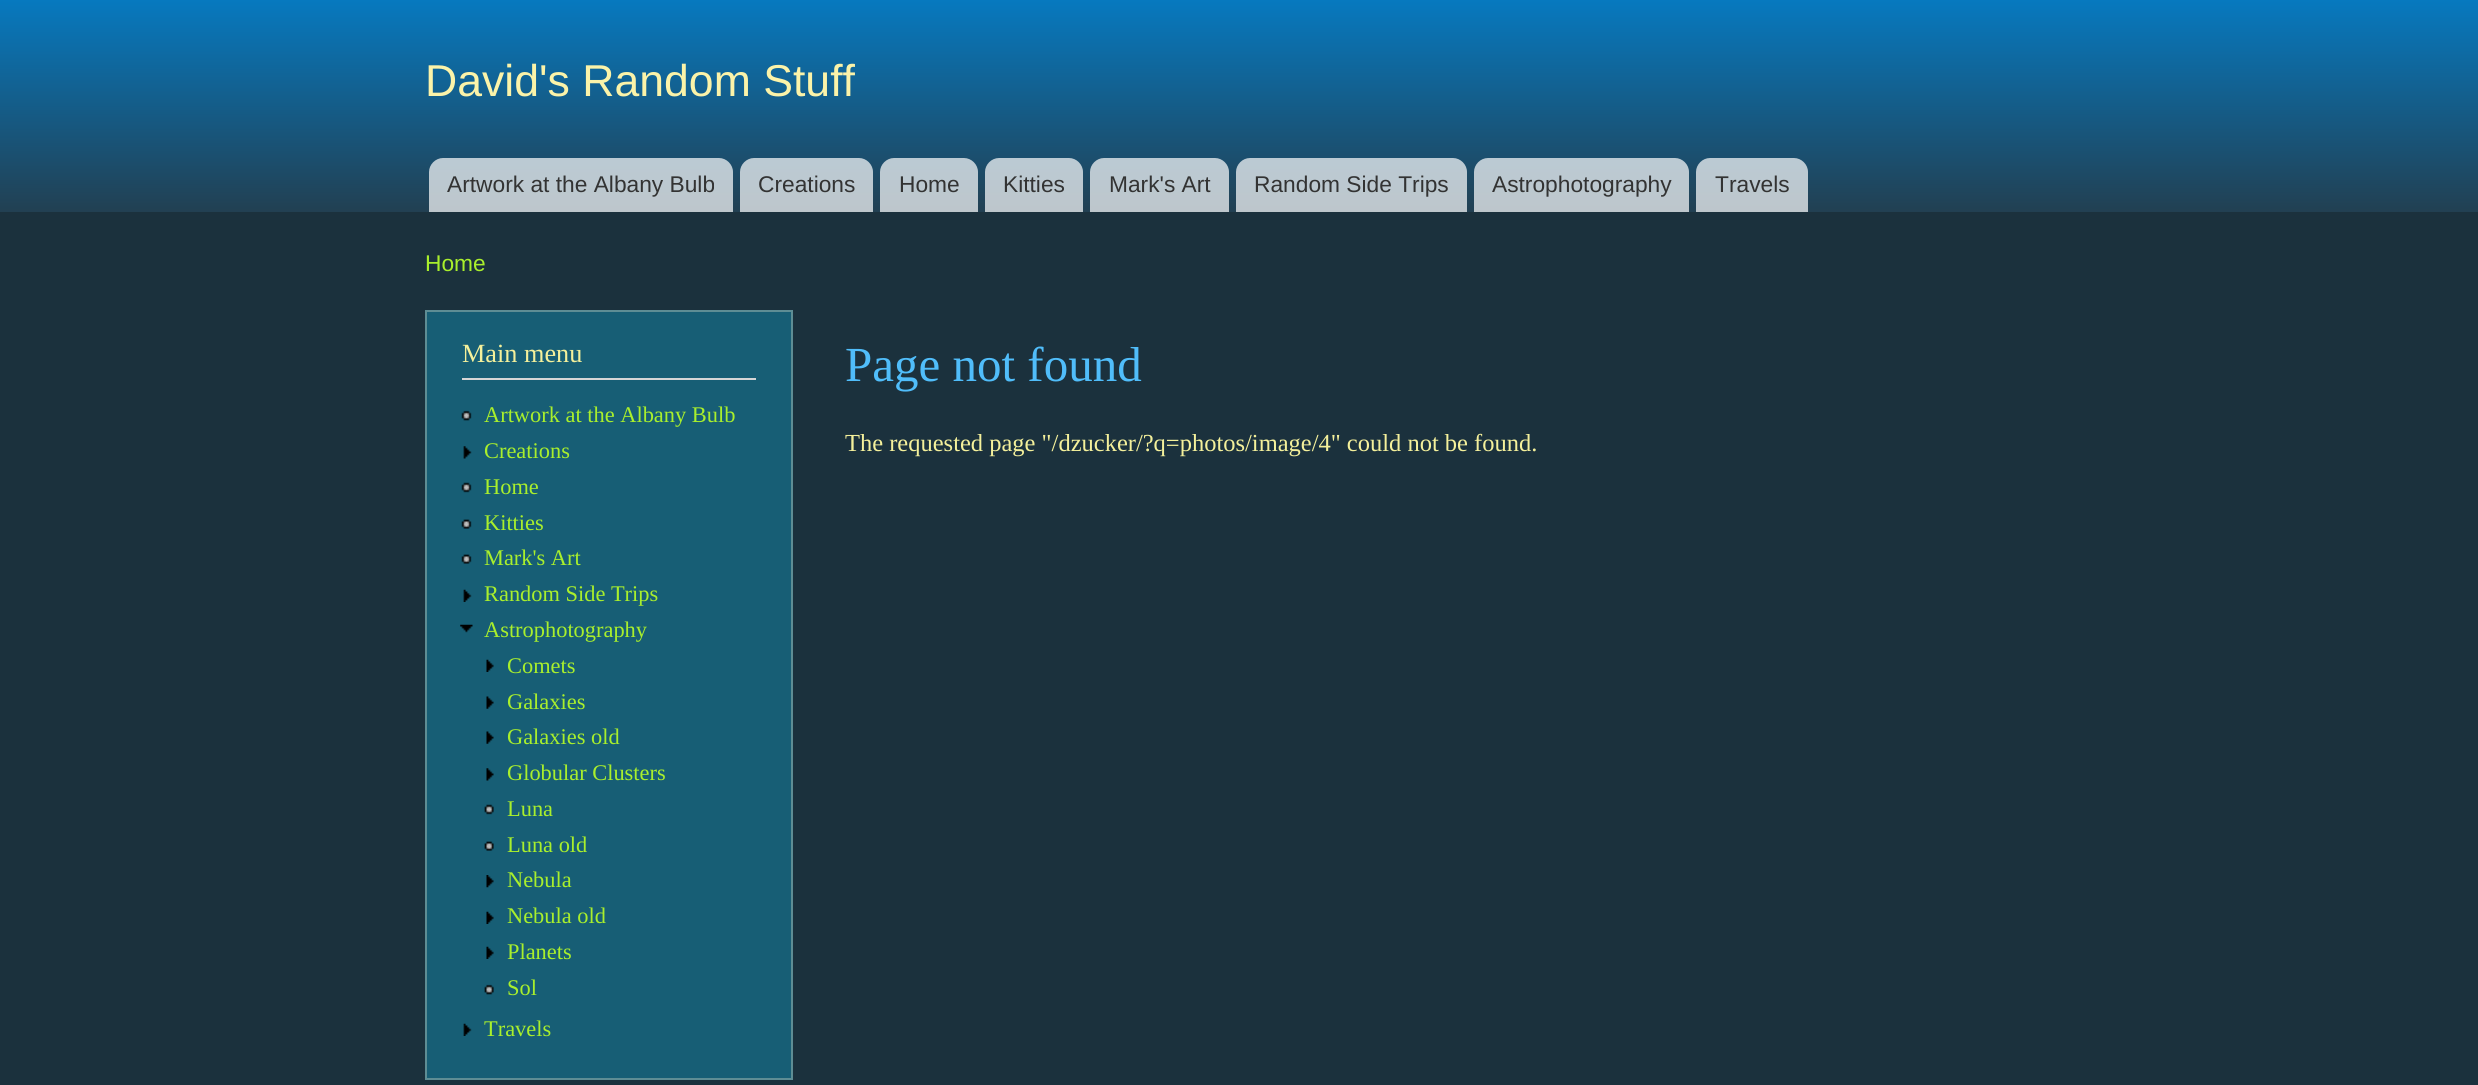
import math
import cairo

surface = cairo.ImageSurface(cairo.FORMAT_RGB24, 2478, 1085)
ctx = cairo.Context(surface)
options = cairo.FontOptions()
options.set_hint_metrics(cairo.HINT_METRICS_OFF)
options.set_hint_style(cairo.HINT_STYLE_NONE)
ctx.set_font_options(options)
ctx.set_miter_limit(4)


def set_color(code):
    ctx.set_source_rgb(*(v / 255 for v in bytes.fromhex(code[-6:])))


def draw_text(x, y, s, family, size, color, bold=False, italic=False):
    ctx.select_font_face(family, cairo.FONT_SLANT_ITALIC if italic else cairo.FONT_SLANT_NORMAL, cairo.FONT_WEIGHT_BOLD if bold else cairo.FONT_WEIGHT_NORMAL)
    ctx.set_font_size(size)
    set_color(color)
    ctx.move_to(x, y)
    ctx.show_text(s)


def fill_rect(x, y, w, h, color):
    set_color(color)
    ctx.rectangle(x, y, w, h)
    ctx.fill()


def draw_image(path, x, y, w, h):
    ctx.save()
    ctx.set_source_surface(cairo.ImageSurface.create_from_png(path), x, y)
    ctx.rectangle(x, y, w, h)
    ctx.fill()
    ctx.restore()


set_color("#1b313d")
ctx.paint()
gradient = cairo.LinearGradient(1239, 0, 1239, 212)
gradient.add_color_stop_rgba(0, 0.027, 0.475, 0.749, 1)
gradient.add_color_stop_rgba(1, 0.133, 0.251, 0.322, 1)
ctx.set_source(gradient)
ctx.rectangle(0, 0, 2478, 212)
ctx.fill()
draw_text(425, 96, "David's Random Stuff", "Liberation Sans", 44.6, "#fbf3a9")
ctx.set_source_rgba(1, 1, 1, 0.7)
ctx.new_path()
ctx.move_to(443, 158)
ctx.line_to(719, 158)
ctx.curve_to(726.5, 158, 733, 164.5, 733, 172)
ctx.line_to(733, 212)
ctx.line_to(429, 212)
ctx.line_to(429, 172)
ctx.curve_to(429, 164.5, 435.5, 158, 443, 158)
ctx.close_path()
ctx.fill()
draw_text(447, 192, "Artwork at the Albany Bulb", "Liberation Sans", 22.75, "#333333")
ctx.set_source_rgba(1, 1, 1, 0.7)
ctx.new_path()
ctx.move_to(754, 158)
ctx.line_to(859, 158)
ctx.curve_to(866.5, 158, 873, 164.5, 873, 172)
ctx.line_to(873, 212)
ctx.line_to(740, 212)
ctx.line_to(740, 172)
ctx.curve_to(740, 164.5, 746.5, 158, 754, 158)
ctx.close_path()
ctx.fill()
draw_text(758, 192, "Creations", "Liberation Sans", 22.75, "#333333")
ctx.set_source_rgba(1, 1, 1, 0.7)
ctx.new_path()
ctx.move_to(894, 158)
ctx.line_to(964, 158)
ctx.curve_to(971.5, 158, 978, 164.5, 978, 172)
ctx.line_to(978, 212)
ctx.line_to(880, 212)
ctx.line_to(880, 172)
ctx.curve_to(880, 164.5, 886.5, 158, 894, 158)
ctx.close_path()
ctx.fill()
draw_text(899, 192, "Home", "Liberation Sans", 22.75, "#333333")
ctx.set_source_rgba(1, 1, 1, 0.7)
ctx.new_path()
ctx.move_to(999, 158)
ctx.line_to(1069, 158)
ctx.curve_to(1076.5, 158, 1083, 164.5, 1083, 172)
ctx.line_to(1083, 212)
ctx.line_to(985, 212)
ctx.line_to(985, 172)
ctx.curve_to(985, 164.5, 991.5, 158, 999, 158)
ctx.close_path()
ctx.fill()
draw_text(1003, 192, "Kitties", "Liberation Sans", 22.75, "#333333")
ctx.set_source_rgba(1, 1, 1, 0.7)
ctx.new_path()
ctx.move_to(1104, 158)
ctx.line_to(1215, 158)
ctx.curve_to(1222.5, 158, 1229, 164.5, 1229, 172)
ctx.line_to(1229, 212)
ctx.line_to(1090, 212)
ctx.line_to(1090, 172)
ctx.curve_to(1090, 164.5, 1096.5, 158, 1104, 158)
ctx.close_path()
ctx.fill()
draw_text(1109, 192, "Mark's Art", "Liberation Sans", 22.75, "#333333")
ctx.set_source_rgba(1, 1, 1, 0.7)
ctx.new_path()
ctx.move_to(1250, 158)
ctx.line_to(1453, 158)
ctx.curve_to(1460.5, 158, 1467, 164.5, 1467, 172)
ctx.line_to(1467, 212)
ctx.line_to(1236, 212)
ctx.line_to(1236, 172)
ctx.curve_to(1236, 164.5, 1242.5, 158, 1250, 158)
ctx.close_path()
ctx.fill()
draw_text(1254, 192, "Random Side Trips", "Liberation Sans", 22.75, "#333333")
ctx.set_source_rgba(1, 1, 1, 0.7)
ctx.new_path()
ctx.move_to(1488, 158)
ctx.line_to(1675, 158)
ctx.curve_to(1682.5, 158, 1689, 164.5, 1689, 172)
ctx.line_to(1689, 212)
ctx.line_to(1474, 212)
ctx.line_to(1474, 172)
ctx.curve_to(1474, 164.5, 1480.5, 158, 1488, 158)
ctx.close_path()
ctx.fill()
draw_text(1492, 192, "Astrophotography", "Liberation Sans", 22.75, "#333333")
ctx.set_source_rgba(1, 1, 1, 0.7)
ctx.new_path()
ctx.move_to(1710, 158)
ctx.line_to(1794, 158)
ctx.curve_to(1801.5, 158, 1808, 164.5, 1808, 172)
ctx.line_to(1808, 212)
ctx.line_to(1696, 212)
ctx.line_to(1696, 172)
ctx.curve_to(1696, 164.5, 1702.5, 158, 1710, 158)
ctx.close_path()
ctx.fill()
draw_text(1715, 192, "Travels", "Liberation Sans", 22.75, "#333333")
draw_text(425, 271, "Home", "Liberation Sans", 22.75, "#a9ef2c")
set_color("#175e75")
ctx.rectangle(426, 311, 366, 768)
ctx.fill_preserve()
set_color("#5e8d94")
ctx.stroke()
fill_rect(462, 378, 294, 2, "#d6d6d6")
draw_text(462, 362, "Main menu", "Liberation Serif", 26.25, "#f4f09b")
draw_image("assets/img1.png", 461, 410, 11, 11)
draw_text(484, 422, "Artwork at the Albany Bulb", "Liberation Serif", 22.4, "#a9ef2c")
draw_image("assets/img2.png", 463, 446, 9, 13)
draw_text(484, 458, "Creations", "Liberation Serif", 22.4, "#a9ef2c")
draw_image("assets/img3.png", 461, 482, 11, 11)
draw_text(484, 494, "Home", "Liberation Serif", 22.4, "#a9ef2c")
draw_image("assets/img4.png", 461, 519, 11, 10)
draw_text(484, 530, "Kitties", "Liberation Serif", 22.4, "#a9ef2c")
draw_image("assets/img4.png", 461, 554, 11, 10)
draw_text(484, 565, "Mark's Art", "Liberation Serif", 22.4, "#a9ef2c")
draw_image("assets/img5.png", 463, 589, 9, 13)
draw_text(484, 601, "Random Side Trips", "Liberation Serif", 22.4, "#a9ef2c")
draw_image("assets/img6.png", 460, 624, 13, 9)
draw_text(484, 637, "Astrophotography", "Liberation Serif", 22.4, "#a9ef2c")
draw_image("assets/img7.png", 486, 659, 8, 13)
draw_text(507, 673, "Comets", "Liberation Serif", 22.4, "#a9ef2c")
draw_image("assets/img8.png", 486, 696, 8, 13)
draw_text(507, 709, "Galaxies", "Liberation Serif", 22.4, "#a9ef2c")
draw_image("assets/img8.png", 486, 731, 8, 13)
draw_text(507, 744, "Galaxies old", "Liberation Serif", 22.4, "#a9ef2c")
draw_image("assets/img9.png", 486, 768, 8, 13)
draw_text(507, 780, "Globular Clusters", "Liberation Serif", 22.4, "#a9ef2c")
draw_image("assets/img10.png", 484, 804, 10, 11)
draw_text(507, 816, "Luna", "Liberation Serif", 22.4, "#a9ef2c")
draw_image("assets/img11.png", 484, 841, 10, 10)
draw_text(507, 852, "Luna old", "Liberation Serif", 22.4, "#a9ef2c")
draw_image("assets/img12.png", 486, 875, 8, 13)
draw_text(507, 887, "Nebula", "Liberation Serif", 22.4, "#a9ef2c")
draw_image("assets/img7.png", 486, 911, 8, 13)
draw_text(507, 923, "Nebula old", "Liberation Serif", 22.4, "#a9ef2c")
draw_image("assets/img7.png", 486, 946, 8, 13)
draw_text(507, 959, "Planets", "Liberation Serif", 22.4, "#a9ef2c")
draw_image("assets/img13.png", 484, 984, 10, 11)
draw_text(507, 995, "Sol", "Liberation Serif", 22.4, "#a9ef2c")
draw_image("assets/img5.png", 463, 1023, 9, 13)
draw_text(484, 1036, "Travels", "Liberation Serif", 22.4, "#a9ef2c")
draw_text(845, 381, "Page not found", "Liberation Serif", 49, "#50bdfa")
draw_text(845, 451, "The requested page \"/dzucker/?q=photos/image/4\" could not be found.", "Liberation Serif", 24.5, "#f4f09b")
surface.write_to_png("output.png")
